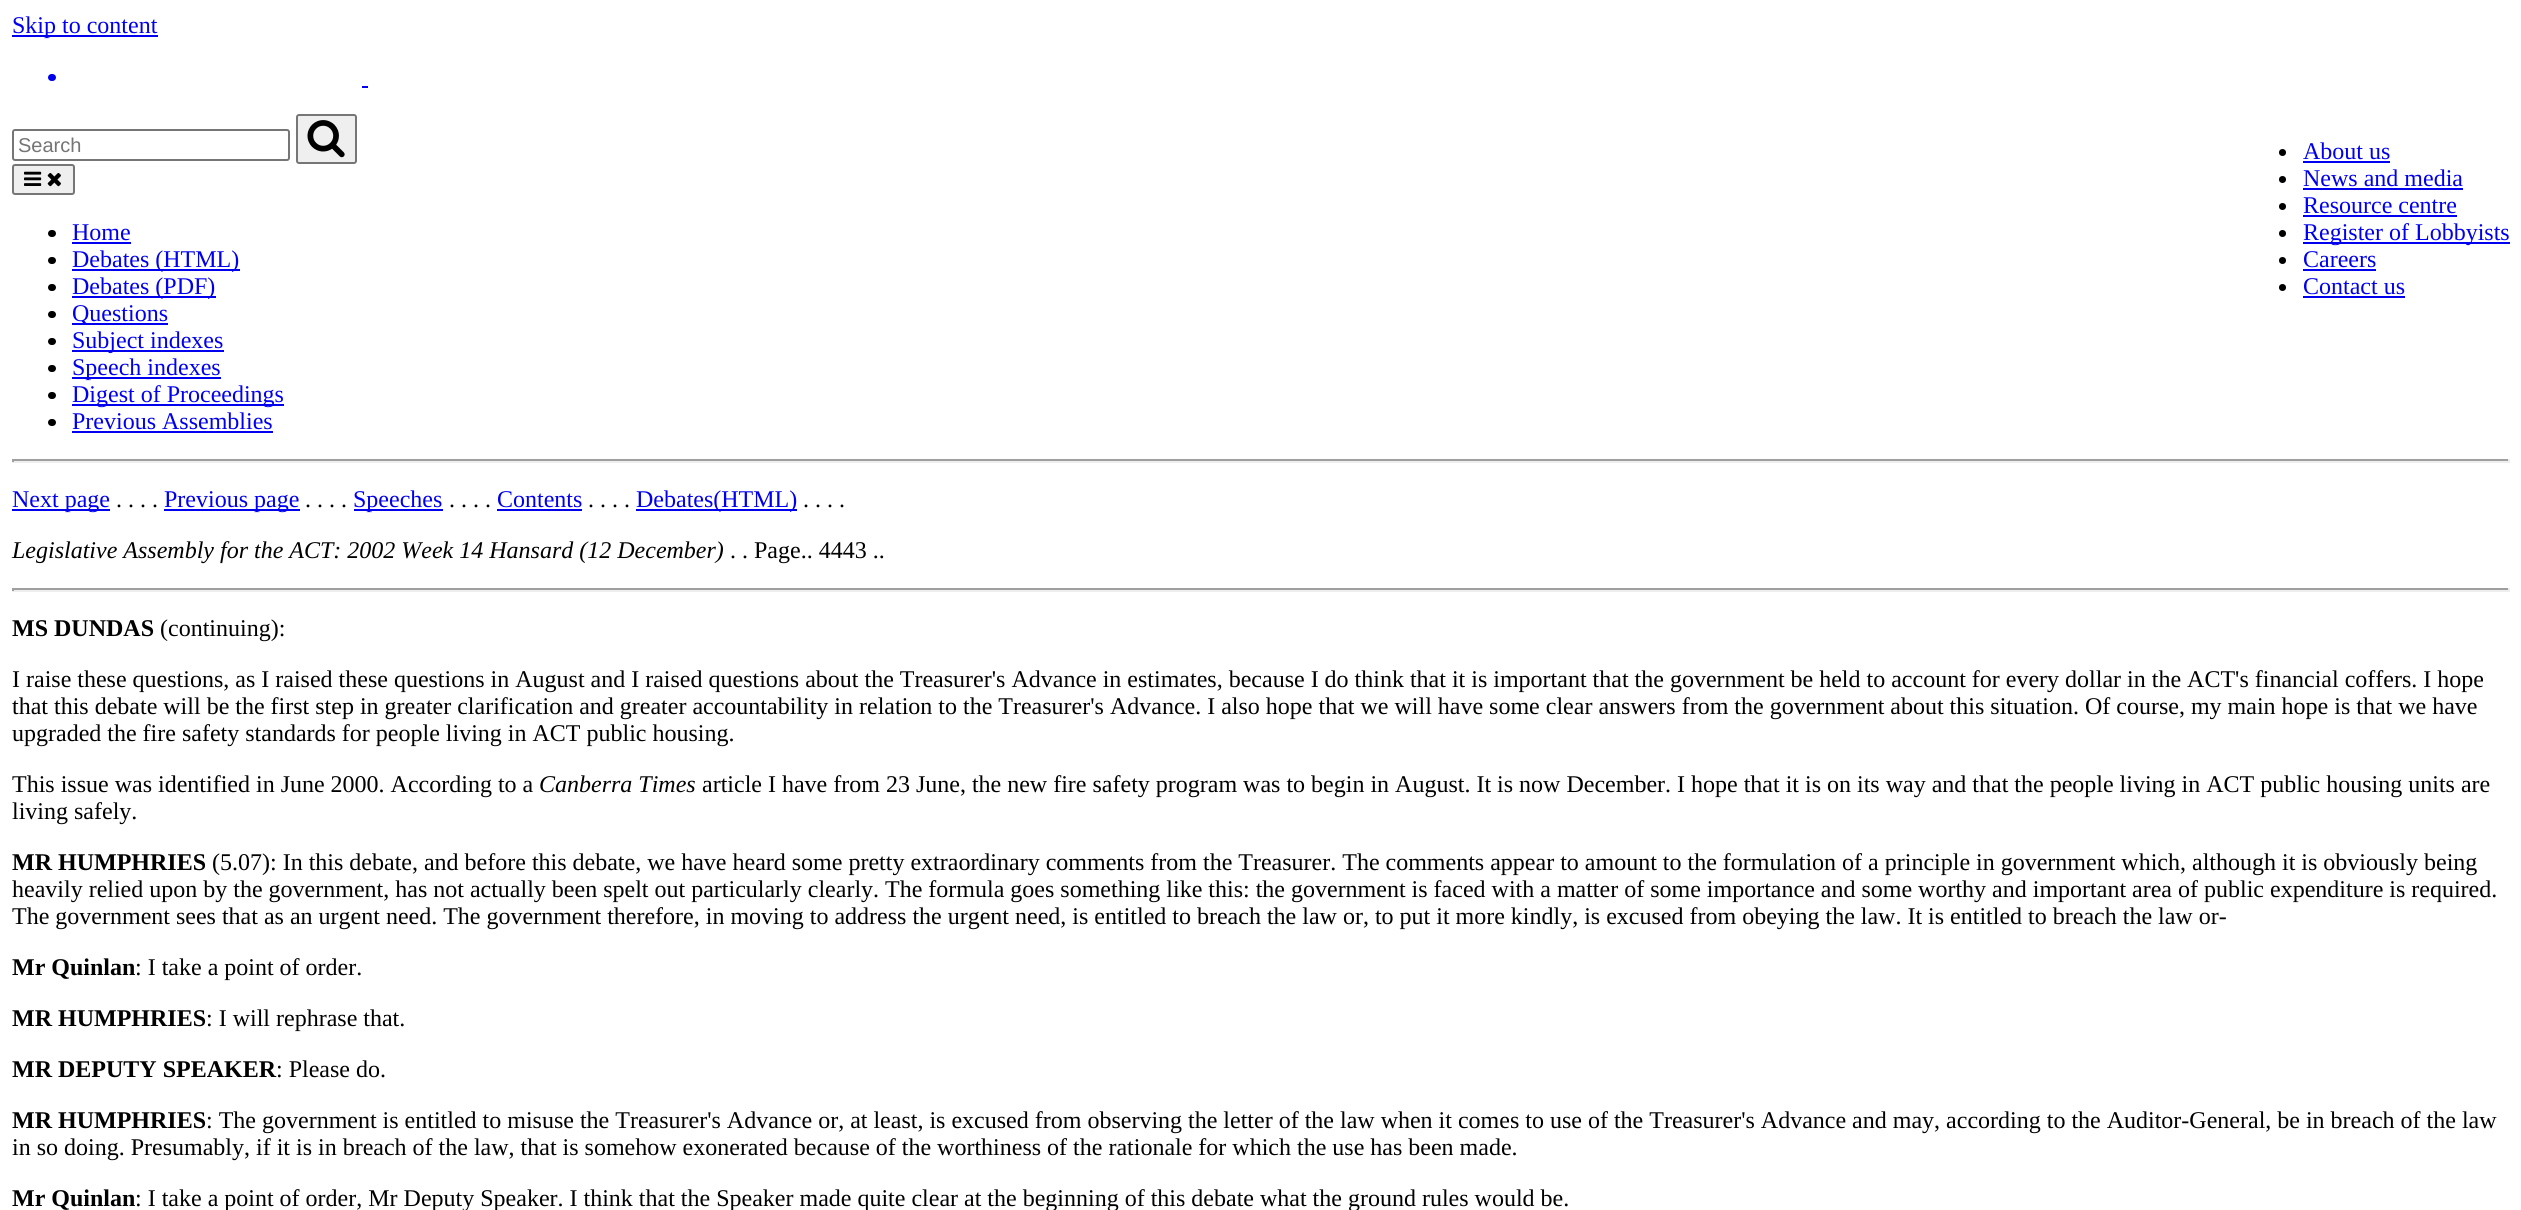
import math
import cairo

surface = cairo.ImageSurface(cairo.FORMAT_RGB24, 2521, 1210)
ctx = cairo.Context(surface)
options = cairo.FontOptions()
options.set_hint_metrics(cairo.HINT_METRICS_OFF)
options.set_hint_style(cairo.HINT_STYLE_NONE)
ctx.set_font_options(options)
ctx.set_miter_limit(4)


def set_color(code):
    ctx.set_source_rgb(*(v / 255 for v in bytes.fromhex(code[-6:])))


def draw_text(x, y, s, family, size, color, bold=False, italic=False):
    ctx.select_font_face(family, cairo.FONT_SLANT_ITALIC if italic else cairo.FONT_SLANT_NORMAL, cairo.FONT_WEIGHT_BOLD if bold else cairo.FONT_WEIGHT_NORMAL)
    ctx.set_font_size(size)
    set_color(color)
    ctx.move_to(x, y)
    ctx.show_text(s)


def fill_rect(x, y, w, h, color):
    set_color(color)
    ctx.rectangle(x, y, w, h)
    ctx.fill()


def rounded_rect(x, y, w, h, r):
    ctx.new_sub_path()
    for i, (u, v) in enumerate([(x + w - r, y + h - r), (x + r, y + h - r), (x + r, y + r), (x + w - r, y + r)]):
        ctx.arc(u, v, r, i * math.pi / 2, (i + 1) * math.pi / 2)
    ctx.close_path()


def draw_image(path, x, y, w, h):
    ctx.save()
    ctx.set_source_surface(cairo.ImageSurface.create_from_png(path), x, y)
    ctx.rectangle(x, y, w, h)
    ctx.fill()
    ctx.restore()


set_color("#ffffff")
ctx.paint()
fill_rect(12, 35, 146, 2, "#0000ee")
draw_text(12, 33, "Skip to content", "Liberation Serif", 24, "#0000ee")
rounded_rect(48, 74, 8, 7, 3.5)
ctx.fill()
fill_rect(362, 86, 6, 2, "#0000ee")
rounded_rect(13, 130, 276, 30, 2)
set_color("#767676")
ctx.stroke()
draw_text(18, 152, "Search", "Liberation Sans", 20, "#757575")
set_color("#efefef")
rounded_rect(297, 115, 59, 48, 2)
ctx.fill_preserve()
set_color("#767676")
ctx.stroke()
draw_image("assets/img1.png", 307, 120, 38, 38)
set_color("#000000")
ctx.arc(2282.5, 152.5, 3.5, 0, 2 * math.pi)
ctx.fill()
draw_text(2303, 159, "About us", "Liberation Serif", 24, "#0000ee")
fill_rect(2303, 161, 87, 2, "#0000ee")
set_color("#000000")
ctx.new_path()
ctx.arc(2282.5, 179.5, 3.5, 0, 2 * math.pi)
ctx.fill()
draw_text(2303, 186, "News and media", "Liberation Serif", 24, "#0000ee")
fill_rect(2303, 188, 160, 2, "#0000ee")
set_color("#000000")
ctx.new_path()
ctx.arc(2282.5, 206.5, 3.5, 0, 2 * math.pi)
ctx.fill()
draw_text(2303, 213, "Resource centre", "Liberation Serif", 24, "#0000ee")
fill_rect(2303, 215, 154, 2, "#0000ee")
set_color("#000000")
ctx.new_path()
ctx.arc(2282.5, 233.5, 3.5, 0, 2 * math.pi)
ctx.fill()
fill_rect(2303, 242, 207, 2, "#0000ee")
draw_text(2303, 240, "Register of Lobbyists", "Liberation Serif", 24, "#0000ee")
set_color("#000000")
ctx.new_path()
ctx.arc(2282.5, 260.5, 3.5, 0, 2 * math.pi)
ctx.fill()
draw_text(2303, 267, "Careers", "Liberation Serif", 24, "#0000ee")
fill_rect(2303, 269, 73, 2, "#0000ee")
set_color("#000000")
ctx.new_path()
ctx.arc(2282.5, 287.5, 3.5, 0, 2 * math.pi)
ctx.fill()
draw_text(2303, 294, "Contact us", "Liberation Serif", 24, "#0000ee")
fill_rect(2303, 296, 102, 2, "#0000ee")
set_color("#efefef")
rounded_rect(13, 165, 61, 29, 2)
ctx.fill_preserve()
set_color("#767676")
ctx.stroke()
draw_image("assets/img2.png", 24, 171, 18, 15)
draw_image("assets/img3.png", 47, 173, 14, 14)
set_color("#000000")
rounded_rect(48, 230, 8, 7, 3.5)
ctx.fill()
draw_text(72, 240, "Home", "Liberation Serif", 24, "#0000ee")
fill_rect(72, 242, 59, 2, "#0000ee")
set_color("#000000")
rounded_rect(48, 257, 8, 7, 3.5)
ctx.fill()
fill_rect(72, 269, 168, 2, "#0000ee")
draw_text(72, 267, "Debates (HTML)", "Liberation Serif", 24, "#0000ee")
set_color("#000000")
rounded_rect(48, 284, 8, 7, 3.5)
ctx.fill()
fill_rect(72, 296, 144, 2, "#0000ee")
draw_text(72, 294, "Debates (PDF)", "Liberation Serif", 24, "#0000ee")
set_color("#000000")
rounded_rect(48, 311, 8, 7, 3.5)
ctx.fill()
fill_rect(72, 323, 96, 2, "#0000ee")
draw_text(72, 321, "Questions", "Liberation Serif", 24, "#0000ee")
set_color("#000000")
rounded_rect(48, 338, 8, 7, 3.5)
ctx.fill()
fill_rect(72, 350, 152, 2, "#0000ee")
draw_text(72, 348, "Subject indexes", "Liberation Serif", 24, "#0000ee")
set_color("#000000")
rounded_rect(48, 365, 8, 7, 3.5)
ctx.fill()
fill_rect(72, 377, 149, 2, "#0000ee")
draw_text(72, 375, "Speech indexes", "Liberation Serif", 24, "#0000ee")
set_color("#000000")
rounded_rect(48, 392, 8, 7, 3.5)
ctx.fill()
fill_rect(72, 404, 212, 2, "#0000ee")
draw_text(72, 402, "Digest of Proceedings", "Liberation Serif", 24, "#0000ee")
set_color("#000000")
rounded_rect(48, 419, 8, 7, 3.5)
ctx.fill()
draw_text(72, 429, "Previous Assemblies", "Liberation Serif", 24, "#0000ee")
fill_rect(72, 431, 201, 2, "#0000ee")
fill_rect(12, 459, 2498, 2, "#9f9f9f")
fill_rect(2508, 459, 2, 3, "#eeeeee")
fill_rect(12, 461, 2498, 2, "#eeeeee")
fill_rect(12, 459, 2, 3, "#9f9f9f")
fill_rect(12, 509, 98, 2, "#0000ee")
draw_text(12, 507, "Next page", "Liberation Serif", 24, "#0000ee")
draw_text(116, 507, ". . . .", "Liberation Serif", 24, "#000000")
fill_rect(164, 509, 136, 2, "#0000ee")
draw_text(164, 507, "Previous page", "Liberation Serif", 24, "#0000ee")
draw_text(305, 507, ". . . .", "Liberation Serif", 24, "#000000")
fill_rect(354, 509, 89, 2, "#0000ee")
draw_text(353, 507, "Speeches", "Liberation Serif", 24, "#0000ee")
draw_text(449, 507, ". . . .", "Liberation Serif", 24, "#000000")
draw_text(497, 507, "Contents", "Liberation Serif", 24, "#0000ee")
fill_rect(497, 509, 85, 2, "#0000ee")
draw_text(588, 507, ". . . .", "Liberation Serif", 24, "#000000")
fill_rect(636, 509, 161, 2, "#0000ee")
draw_text(636, 507, "Debates(HTML)", "Liberation Serif", 24, "#0000ee")
draw_text(803, 507, ". . . .", "Liberation Serif", 24, "#000000")
draw_text(12, 558, "Legislative Assembly for the ACT: 2002 Week 14 Hansard (12 December)", "Liberation Serif", 24, "#000000", italic=True)
draw_text(730, 558, ". . Page.. 4443 ..", "Liberation Serif", 24, "#000000")
fill_rect(12, 588, 2498, 2, "#9f9f9f")
fill_rect(2508, 588, 2, 3, "#eeeeee")
fill_rect(12, 590, 2498, 2, "#eeeeee")
fill_rect(12, 588, 2, 3, "#9f9f9f")
draw_text(12, 636, "MS DUNDAS", "Liberation Serif", 24, "#000000", bold=True)
draw_text(160, 636, "(continuing):", "Liberation Serif", 24, "#000000")
draw_text(12, 687, "I raise these questions, as I raised these questions in August and I raised questions about the Treasurer's Advance in estimates, because I do think that it is important that the government be held to account for every dollar in the ACT's financial coffers. I hope", "Liberation Serif", 24, "#000000")
draw_text(12, 714, "that this debate will be the first step in greater clarification and greater accountability in relation to the Treasurer's Advance. I also hope that we will have some clear answers from the government about this situation. Of course, my main hope is that we have", "Liberation Serif", 24, "#000000")
draw_text(12, 741, "upgraded the fire safety standards for people living in ACT public housing.", "Liberation Serif", 24, "#000000")
draw_text(12, 792, "This issue was identified in June 2000. According to a", "Liberation Serif", 24, "#000000")
draw_text(539, 792, "Canberra Times", "Liberation Serif", 24, "#000000", italic=True)
draw_text(702, 792, "article I have from 23 June, the new fire safety program was to begin in August. It is now December. I hope that it is on its way and that the people living in ACT public housing units are", "Liberation Serif", 24, "#000000")
draw_text(12, 819, "living safely.", "Liberation Serif", 24, "#000000")
draw_text(12, 870, "MR HUMPHRIES", "Liberation Serif", 24, "#000000", bold=True)
draw_text(212, 870, "(5.07): In this debate, and before this debate, we have heard some pretty extraordinary comments from the Treasurer. The comments appear to amount to the formulation of a principle in government which, although it is obviously being", "Liberation Serif", 24, "#000000")
draw_text(12, 897, "heavily relied upon by the government, has not actually been spelt out particularly clearly. The formula goes something like this: the government is faced with a matter of some importance and some worthy and important area of public expenditure is required.", "Liberation Serif", 24, "#000000")
draw_text(12, 924, "The government sees that as an urgent need. The government therefore, in moving to address the urgent need, is entitled to breach the law or, to put it more kindly, is excused from obeying the law. It is entitled to breach the law or-", "Liberation Serif", 24, "#000000")
draw_text(12, 975, "Mr Quinlan", "Liberation Serif", 24, "#000000", bold=True)
draw_text(135, 975, ": I take a point of order.", "Liberation Serif", 24, "#000000")
draw_text(12, 1026, "MR HUMPHRIES", "Liberation Serif", 24, "#000000", bold=True)
draw_text(206, 1026, ": I will rephrase that.", "Liberation Serif", 24, "#000000")
draw_text(12, 1077, "MR DEPUTY SPEAKER", "Liberation Serif", 24, "#000000", bold=True)
draw_text(276, 1077, ": Please do.", "Liberation Serif", 24, "#000000")
draw_text(12, 1128, "MR HUMPHRIES", "Liberation Serif", 24, "#000000", bold=True)
draw_text(206, 1128, ": The government is entitled to misuse the Treasurer's Advance or, at least, is excused from observing the letter of the law when it comes to use of the Treasurer's Advance and may, according to the Auditor-General, be in breach of the law", "Liberation Serif", 24, "#000000")
draw_text(12, 1155, "in so doing. Presumably, if it is in breach of the law, that is somehow exonerated because of the worthiness of the rationale for which the use has been made.", "Liberation Serif", 24, "#000000")
draw_text(12, 1206, "Mr Quinlan", "Liberation Serif", 24, "#000000", bold=True)
draw_text(135, 1206, ": I take a point of order, Mr Deputy Speaker. I think that the Speaker made quite clear at the beginning of this debate what the ground rules would be.", "Liberation Serif", 24, "#000000")
surface.write_to_png("output.png")
